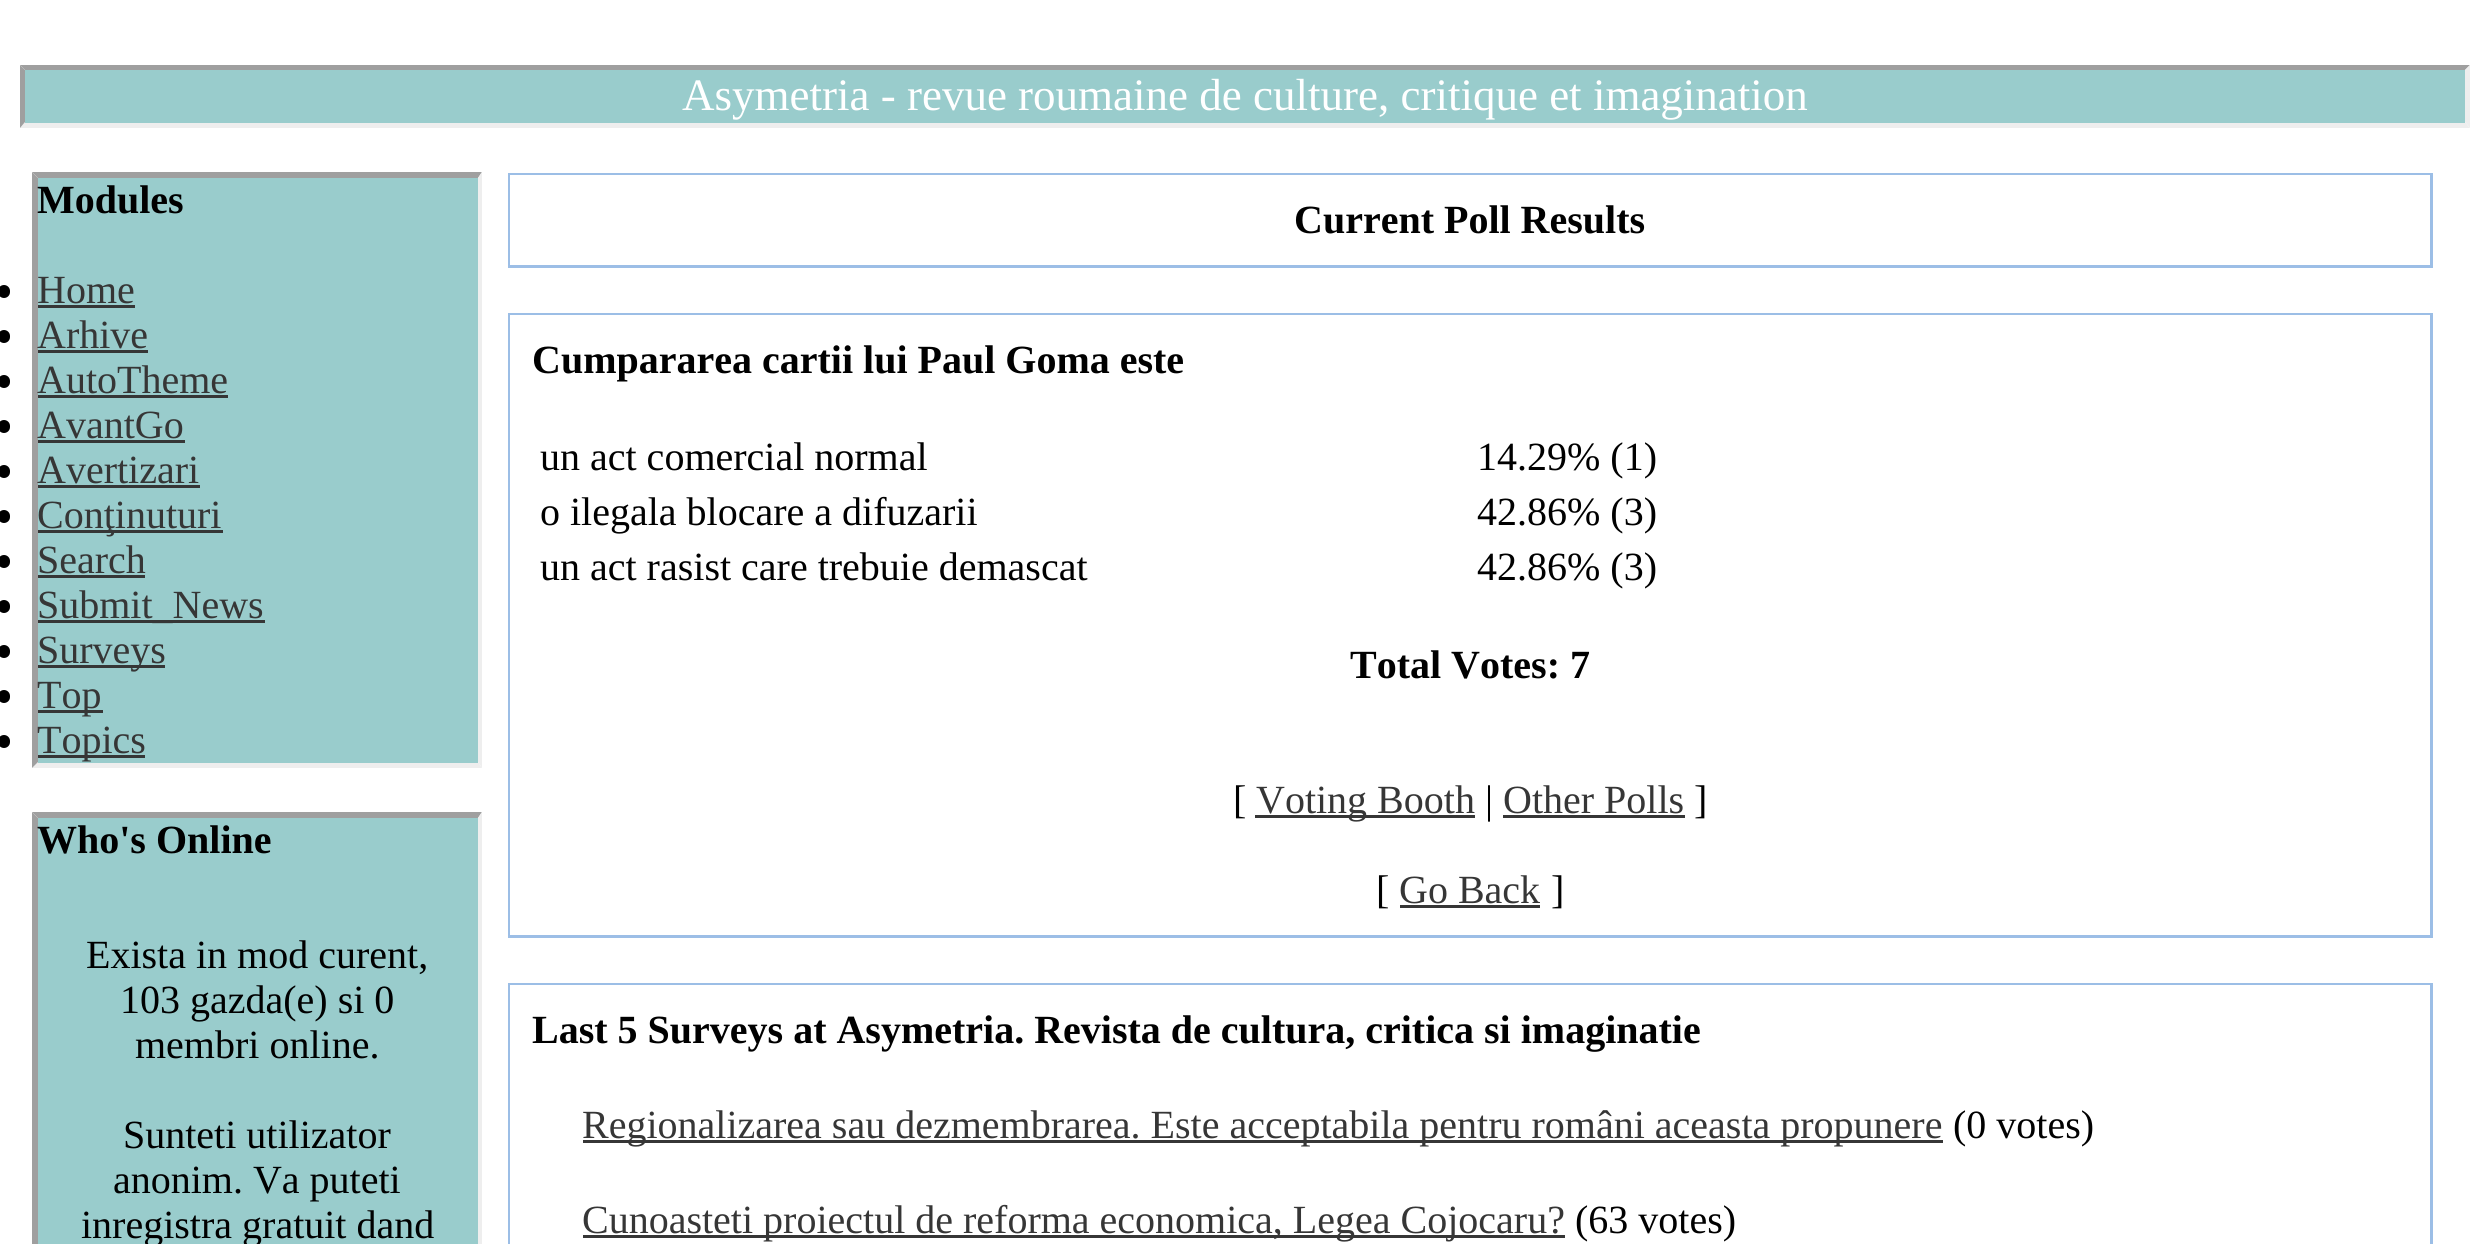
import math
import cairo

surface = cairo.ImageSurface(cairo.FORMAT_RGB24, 2488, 1244)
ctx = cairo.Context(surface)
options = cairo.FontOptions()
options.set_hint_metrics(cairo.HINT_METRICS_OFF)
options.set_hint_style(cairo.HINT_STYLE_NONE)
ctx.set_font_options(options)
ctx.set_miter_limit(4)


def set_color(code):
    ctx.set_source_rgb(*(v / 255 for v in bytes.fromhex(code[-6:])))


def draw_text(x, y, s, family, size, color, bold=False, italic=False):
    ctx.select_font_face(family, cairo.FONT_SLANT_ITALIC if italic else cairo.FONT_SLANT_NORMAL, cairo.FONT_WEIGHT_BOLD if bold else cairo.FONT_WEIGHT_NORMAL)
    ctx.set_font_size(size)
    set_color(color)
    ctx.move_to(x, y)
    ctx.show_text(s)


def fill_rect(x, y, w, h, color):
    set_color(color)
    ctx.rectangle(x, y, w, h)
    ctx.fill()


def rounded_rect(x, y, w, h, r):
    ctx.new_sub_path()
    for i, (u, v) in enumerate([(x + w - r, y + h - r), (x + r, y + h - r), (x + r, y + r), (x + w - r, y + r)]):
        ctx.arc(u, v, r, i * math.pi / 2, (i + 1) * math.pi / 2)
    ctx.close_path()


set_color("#ffffff")
ctx.paint()
set_color("#9f9f9f")
ctx.new_path()
ctx.move_to(20, 65)
ctx.line_to(2470, 65)
ctx.line_to(2465, 70)
ctx.line_to(25, 70)
ctx.close_path()
ctx.fill()
set_color("#eeeeee")
ctx.new_path()
ctx.move_to(2470, 65)
ctx.line_to(2470, 128)
ctx.line_to(2465, 122)
ctx.line_to(2465, 70)
ctx.close_path()
ctx.fill()
ctx.new_path()
ctx.move_to(2470, 128)
ctx.line_to(20, 128)
ctx.line_to(25, 122)
ctx.line_to(2465, 122)
ctx.close_path()
ctx.fill()
set_color("#9f9f9f")
ctx.new_path()
ctx.move_to(20, 128)
ctx.line_to(20, 65)
ctx.line_to(25, 70)
ctx.line_to(25, 122)
ctx.close_path()
ctx.fill()
fill_rect(25, 70, 2440, 53, "#99cccc")
draw_text(682, 110, "Asymetria - revue roumaine de culture, critique et imagination", "Liberation Serif", 45, "#ffffff")
set_color("#9f9f9f")
ctx.new_path()
ctx.move_to(32, 172)
ctx.line_to(482, 172)
ctx.line_to(478, 178)
ctx.line_to(38, 178)
ctx.close_path()
ctx.fill()
set_color("#eeeeee")
ctx.new_path()
ctx.move_to(482, 172)
ctx.line_to(482, 768)
ctx.line_to(478, 762)
ctx.line_to(478, 178)
ctx.close_path()
ctx.fill()
ctx.new_path()
ctx.move_to(482, 768)
ctx.line_to(32, 768)
ctx.line_to(38, 762)
ctx.line_to(478, 762)
ctx.close_path()
ctx.fill()
set_color("#9f9f9f")
ctx.new_path()
ctx.move_to(32, 768)
ctx.line_to(32, 172)
ctx.line_to(38, 178)
ctx.line_to(38, 762)
ctx.close_path()
ctx.fill()
fill_rect(38, 178, 440, 585, "#99cccc")
draw_text(37, 213, "Modules", "Liberation Serif", 40, "#000000", bold=True)
rounded_rect(-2, 285, 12, 13, 6)
ctx.fill()
draw_text(37, 303, "Home", "Liberation Serif", 40, "#363636")
fill_rect(38, 305, 97, 3, "#363636")
set_color("#000000")
rounded_rect(-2, 330, 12, 13, 6)
ctx.fill()
draw_text(37, 348, "Arhive", "Liberation Serif", 40, "#363636")
fill_rect(38, 350, 110, 3, "#363636")
set_color("#000000")
rounded_rect(-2, 375, 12, 13, 6)
ctx.fill()
draw_text(37, 393, "AutoTheme", "Liberation Serif", 40, "#363636")
fill_rect(38, 395, 190, 3, "#363636")
set_color("#000000")
rounded_rect(-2, 420, 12, 13, 6)
ctx.fill()
draw_text(37, 438, "AvantGo", "Liberation Serif", 40, "#363636")
fill_rect(38, 440, 147, 3, "#363636")
set_color("#000000")
rounded_rect(-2, 465, 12, 13, 6)
ctx.fill()
draw_text(37, 483, "Avertizari", "Liberation Serif", 40, "#363636")
fill_rect(38, 485, 162, 3, "#363636")
set_color("#000000")
rounded_rect(-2, 510, 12, 13, 6)
ctx.fill()
fill_rect(38, 530, 185, 3, "#363636")
draw_text(37, 528, "Conţinuturi", "Liberation Serif", 40, "#363636")
set_color("#000000")
rounded_rect(-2, 555, 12, 13, 6)
ctx.fill()
draw_text(37, 573, "Search", "Liberation Serif", 40, "#363636")
fill_rect(38, 575, 107, 3, "#363636")
set_color("#000000")
rounded_rect(-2, 600, 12, 13, 6)
ctx.fill()
fill_rect(38, 620, 227, 3, "#363636")
draw_text(37, 618, "Submit_News", "Liberation Serif", 40, "#363636")
set_color("#000000")
rounded_rect(-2, 645, 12, 13, 6)
ctx.fill()
fill_rect(38, 665, 127, 3, "#363636")
draw_text(37, 663, "Surveys", "Liberation Serif", 40, "#363636")
set_color("#000000")
rounded_rect(-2, 690, 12, 13, 6)
ctx.fill()
fill_rect(38, 710, 65, 3, "#363636")
draw_text(37, 708, "Top", "Liberation Serif", 40, "#363636")
set_color("#000000")
rounded_rect(-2, 735, 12, 13, 6)
ctx.fill()
fill_rect(38, 755, 107, 3, "#363636")
draw_text(37, 753, "Topics", "Liberation Serif", 40, "#363636")
set_color("#9f9f9f")
ctx.new_path()
ctx.move_to(32, 812)
ctx.line_to(482, 812)
ctx.line_to(478, 818)
ctx.line_to(38, 818)
ctx.close_path()
ctx.fill()
set_color("#eeeeee")
ctx.new_path()
ctx.move_to(482, 812)
ctx.line_to(482, 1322)
ctx.line_to(478, 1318)
ctx.line_to(478, 818)
ctx.close_path()
ctx.fill()
set_color("#9f9f9f")
ctx.new_path()
ctx.move_to(32, 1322)
ctx.line_to(32, 812)
ctx.line_to(38, 818)
ctx.line_to(38, 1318)
ctx.close_path()
ctx.fill()
fill_rect(38, 818, 440, 426, "#99cccc")
draw_text(37, 853, "Who's Online", "Liberation Serif", 40, "#000000", bold=True)
draw_text(86, 968, "Exista in mod curent,", "Liberation Serif", 40, "#000000")
draw_text(120, 1013, "103 gazda(e) si 0", "Liberation Serif", 40, "#000000")
draw_text(135, 1058, "membri online.", "Liberation Serif", 40, "#000000")
draw_text(123, 1148, "Sunteti utilizator", "Liberation Serif", 40, "#000000")
draw_text(113, 1193, "anonim. Va puteti", "Liberation Serif", 40, "#000000")
draw_text(81, 1238, "inregistra gratuit dand", "Liberation Serif", 40, "#000000")
fill_rect(508, 173, 1925, 95, "#9cbee6")
fill_rect(510, 175, 1920, 90, "#ffffff")
draw_text(1294, 233, "Current Poll Results", "Liberation Serif", 40, "#000000", bold=True)
fill_rect(508, 313, 1925, 625, "#9cbee6")
fill_rect(510, 315, 1920, 620, "#ffffff")
draw_text(532, 373, "Cumpararea cartii lui Paul Goma este", "Liberation Serif", 40, "#000000", bold=True)
draw_text(540, 470, "un act comercial normal", "Liberation Serif", 40, "#000000")
draw_text(1477, 470, "14.29% (1)", "Liberation Serif", 40, "#000000")
draw_text(540, 525, "o ilegala blocare a difuzarii", "Liberation Serif", 40, "#000000")
draw_text(1477, 525, "42.86% (3)", "Liberation Serif", 40, "#000000")
draw_text(540, 580, "un act rasist care trebuie demascat", "Liberation Serif", 40, "#000000")
draw_text(1477, 580, "42.86% (3)", "Liberation Serif", 40, "#000000")
draw_text(1350, 678, "Total Votes: 7", "Liberation Serif", 40, "#000000", bold=True)
draw_text(1233, 813, "[", "Liberation Serif", 40, "#000000")
fill_rect(1255, 815, 220, 3, "#363636")
draw_text(1256, 813, "Voting Booth", "Liberation Serif", 40, "#363636")
draw_text(1485, 813, "|", "Liberation Serif", 40, "#000000")
draw_text(1503, 813, "Other Polls", "Liberation Serif", 40, "#363636")
fill_rect(1503, 815, 182, 3, "#363636")
draw_text(1694, 813, "]", "Liberation Serif", 40, "#000000")
draw_text(1376, 903, "[", "Liberation Serif", 40, "#000000")
draw_text(1399, 903, "Go Back", "Liberation Serif", 40, "#363636")
fill_rect(1400, 905, 140, 3, "#363636")
draw_text(1551, 903, "]", "Liberation Serif", 40, "#000000")
fill_rect(508, 983, 1925, 261, "#9cbee6")
fill_rect(510, 985, 1920, 259, "#ffffff")
draw_text(532, 1043, "Last 5 Surveys at Asymetria. Revista de cultura, critica si imaginatie", "Liberation Serif", 40, "#000000", bold=True)
fill_rect(583, 1140, 1360, 3, "#363636")
draw_text(582, 1138, "Regionalizarea sau dezmembrarea. Este acceptabila pentru români aceasta propunere", "Liberation Serif", 40, "#363636")
draw_text(1953, 1138, "(0 votes)", "Liberation Serif", 40, "#000000")
fill_rect(583, 1235, 982, 3, "#363636")
draw_text(582, 1233, "Cunoasteti proiectul de reforma economica, Legea Cojocaru?", "Liberation Serif", 40, "#363636")
draw_text(1575, 1233, "(63 votes)", "Liberation Serif", 40, "#000000")
surface.write_to_png("output.png")
